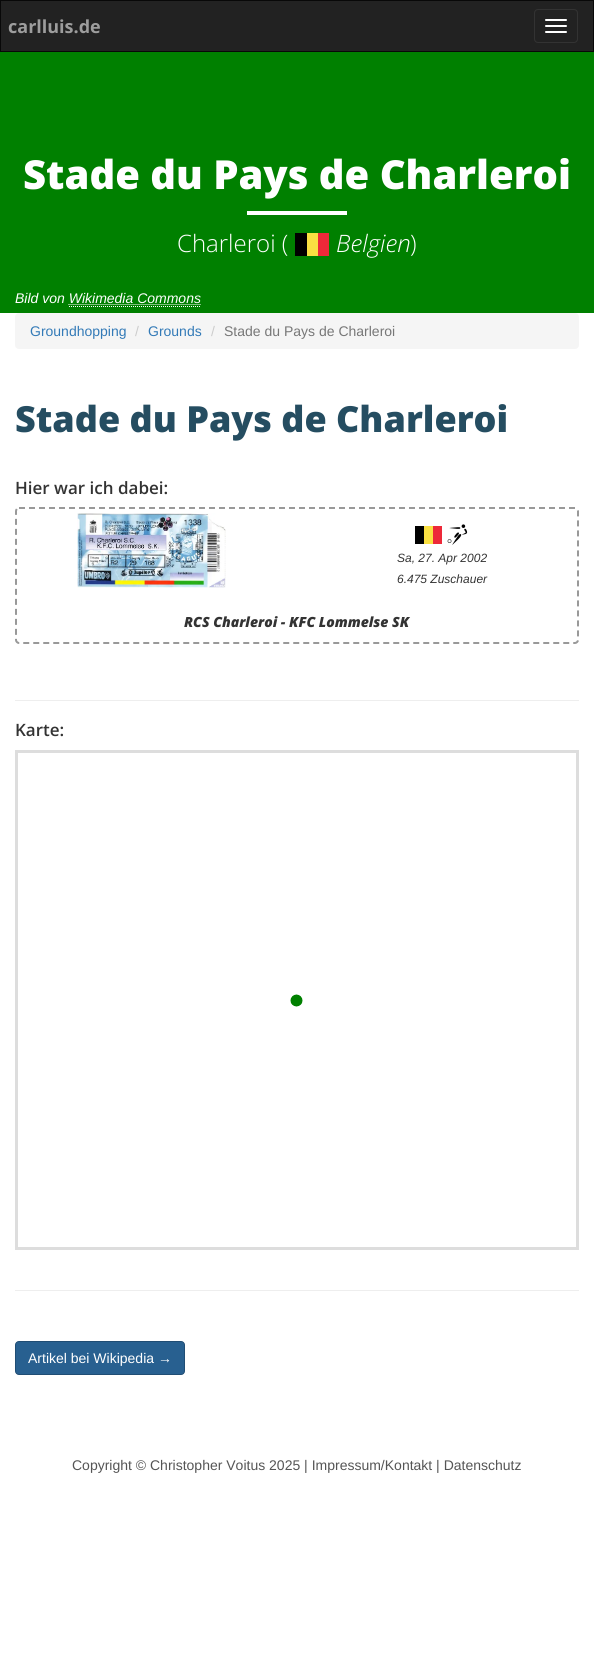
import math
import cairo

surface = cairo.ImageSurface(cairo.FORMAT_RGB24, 594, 1669)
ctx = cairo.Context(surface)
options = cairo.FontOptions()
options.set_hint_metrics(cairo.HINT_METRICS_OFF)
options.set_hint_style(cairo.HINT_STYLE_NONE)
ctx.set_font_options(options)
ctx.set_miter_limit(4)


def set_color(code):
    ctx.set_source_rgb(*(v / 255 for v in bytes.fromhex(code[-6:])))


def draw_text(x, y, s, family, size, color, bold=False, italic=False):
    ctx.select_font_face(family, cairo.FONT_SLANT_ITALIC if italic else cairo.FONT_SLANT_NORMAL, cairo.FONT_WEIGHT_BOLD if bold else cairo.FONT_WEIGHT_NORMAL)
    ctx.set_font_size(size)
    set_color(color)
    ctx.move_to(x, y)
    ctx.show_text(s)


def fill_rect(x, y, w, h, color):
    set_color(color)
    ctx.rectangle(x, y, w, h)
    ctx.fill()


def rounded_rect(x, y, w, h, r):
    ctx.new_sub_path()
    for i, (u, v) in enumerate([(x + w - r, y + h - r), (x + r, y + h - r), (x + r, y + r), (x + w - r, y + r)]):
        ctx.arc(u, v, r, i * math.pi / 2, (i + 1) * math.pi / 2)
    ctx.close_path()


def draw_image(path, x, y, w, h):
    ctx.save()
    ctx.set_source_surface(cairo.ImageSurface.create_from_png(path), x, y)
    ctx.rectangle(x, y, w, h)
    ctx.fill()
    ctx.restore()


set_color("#ffffff")
ctx.paint()
set_color("#222222")
ctx.rectangle(0.5, 0.5, 593, 51)
ctx.fill_preserve()
set_color("#080808")
ctx.set_line_width(1)
ctx.stroke()
draw_text(8, 33, "carlluis.de", "Open Sans", 18, "#9d9d9d", bold=True)
rounded_rect(534.5, 9.5, 43, 33, 3.5)
set_color("#333333")
ctx.stroke()
set_color("#ffffff")
rounded_rect(545, 19, 22, 2, 1)
ctx.fill()
rounded_rect(545, 25, 22, 2, 1)
ctx.fill()
rounded_rect(545, 31, 22, 2, 1)
ctx.fill()
fill_rect(0, 52, 594, 261, "#008000")
draw_text(23, 189, "Stade du Pays de Charleroi", "Open Sans ExtraBold", 40, "#ffffff")
fill_rect(247, 211, 100, 4, "#ffffff")
draw_text(177, 252, "Charleroi (", "Open Sans Light", 24, "#ffffff")
draw_text(336, 252, "Belgien", "Open Sans Light", 24, "#ffffff", italic=True)
fill_rect(318, 233, 11, 23, "#ed2939")
fill_rect(307, 233, 11, 23, "#fae042")
fill_rect(295, 233, 12, 23, "#000000")
draw_text(410, 252, ")", "Open Sans Light", 24, "#ffffff")
draw_text(15, 303, "Bild von Wikimedia Commons", "Liberation Sans", 14, "#ffffff", italic=True)
ctx.new_path()
ctx.move_to(68.5, 304.5)
ctx.line_to(201, 304.5)
ctx.set_dash([1, 1])
ctx.stroke()
ctx.new_path()
ctx.move_to(69, 306.5)
ctx.line_to(201, 306.5)
ctx.stroke()
set_color("#f5f5f5")
rounded_rect(15, 313, 564, 36, 4)
ctx.fill()
draw_text(30, 336, "Groundhopping", "Liberation Sans", 14, "#337ab7")
draw_text(135, 336, "/", "Liberation Sans", 14, "#cccccc")
draw_text(148, 336, "Grounds", "Liberation Sans", 14, "#337ab7")
draw_text(211, 336, "/", "Liberation Sans", 14, "#cccccc")
draw_text(224, 336, "Stade du Pays de Charleroi", "Liberation Sans", 14, "#777777")
draw_text(15, 432, "Stade du Pays de Charleroi", "Open Sans ExtraBold", 36, "#254d61")
draw_text(15, 494, "Hier war ich dabei:", "Open Sans SemiBold", 17, "#333333")
ctx.new_path()
ctx.move_to(19, 508)
ctx.line_to(575, 508)
ctx.curve_to(576.5, 508, 578, 509.5, 578, 511)
ctx.line_to(578, 640)
ctx.curve_to(578, 641.5, 576.5, 643, 575, 643)
ctx.line_to(19, 643)
ctx.curve_to(17.5, 643, 16, 641.5, 16, 640)
ctx.line_to(16, 511)
ctx.curve_to(16, 509.5, 17.5, 508, 19, 508)
ctx.close_path()
set_color("#999999")
ctx.set_line_width(2)
ctx.set_dash([6, 4])
ctx.stroke()
draw_image("assets/img1.png", 77, 513, 149, 75)
fill_rect(415, 526, 9, 18, "#000000")
fill_rect(424, 526, 9, 18, "#fae042")
fill_rect(433, 526, 9, 18, "#ed2939")
draw_image("assets/img2.png", 447, 524, 21, 21)
draw_text(397, 562, "Sa, 27. Apr 2002", "Liberation Sans", 12, "#333333", italic=True)
draw_text(397, 583, "6.475 Zuschauer", "Liberation Sans", 12, "#333333", italic=True)
draw_text(184, 627, "RCS Charleroi - KFC Lommelse SK", "Open Sans ExtraBold", 14, "#333333", italic=True)
fill_rect(15, 700, 564, 1, "#eeeeee")
draw_text(15, 736, "Karte:", "Open Sans SemiBold", 17, "#333333")
ctx.rectangle(16.5, 751.5, 561, 497)
set_color("#dddddd")
ctx.set_line_width(3)
ctx.set_dash([])
ctx.stroke()
draw_image("assets/img3.png", 290, 994, 13, 13)
fill_rect(15, 1290, 564, 1, "#eeeeee")
set_color("#286090")
rounded_rect(15.5, 1341.5, 169, 33, 3.5)
ctx.fill_preserve()
set_color("#204d74")
ctx.set_line_width(1)
ctx.stroke()
draw_text(28, 1363, "Artikel bei Wikipedia →", "Liberation Sans", 14, "#ffffff")
draw_text(72, 1470, "Copyright © Christopher Voitus 2025 | Impressum/Kontakt | Datenschutz", "Liberation Sans", 14, "#555555")
surface.write_to_png("output.png")
